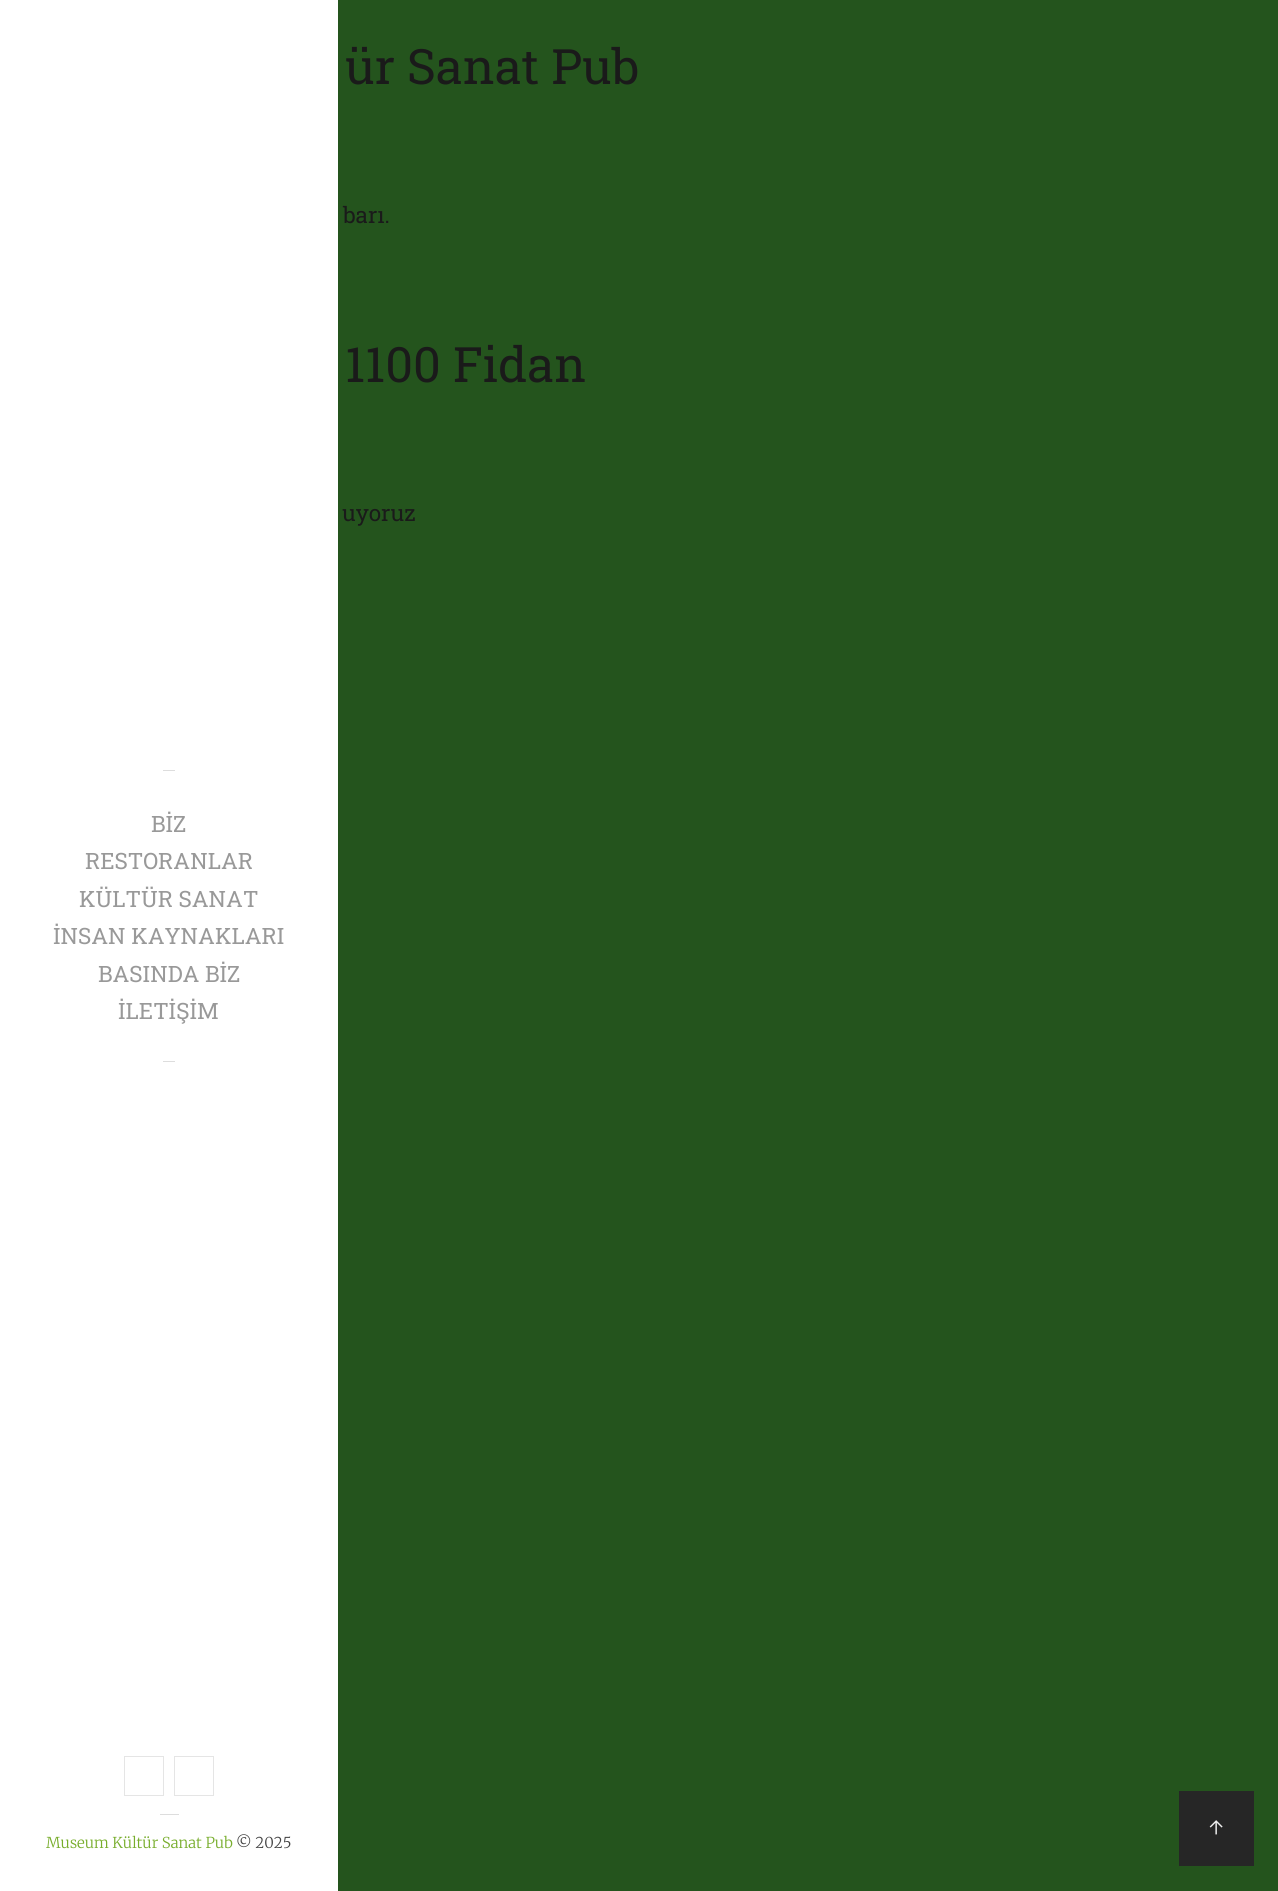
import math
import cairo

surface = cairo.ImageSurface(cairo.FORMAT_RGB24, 1278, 1891)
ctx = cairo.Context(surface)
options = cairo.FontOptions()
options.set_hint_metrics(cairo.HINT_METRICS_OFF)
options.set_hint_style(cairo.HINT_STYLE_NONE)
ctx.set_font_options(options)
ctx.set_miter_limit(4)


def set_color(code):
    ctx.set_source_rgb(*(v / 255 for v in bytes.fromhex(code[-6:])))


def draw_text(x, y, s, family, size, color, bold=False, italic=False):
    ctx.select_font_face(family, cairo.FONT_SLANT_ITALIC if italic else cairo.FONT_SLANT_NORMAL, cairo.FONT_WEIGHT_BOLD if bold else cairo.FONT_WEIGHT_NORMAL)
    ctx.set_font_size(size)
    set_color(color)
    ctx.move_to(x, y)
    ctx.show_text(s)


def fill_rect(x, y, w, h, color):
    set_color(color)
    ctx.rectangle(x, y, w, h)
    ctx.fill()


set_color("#24541d")
ctx.paint()
draw_text(345, 84, "ür Sanat Pub", "Roboto Slab", 48.75, "#1a1a1a")
draw_text(343, 223, "barı.", "Roboto Slab", 22.5, "#1a1a1a")
draw_text(345, 382, "1100 Fidan", "Roboto Slab", 48.75, "#1a1a1a")
draw_text(342, 521, "uyoruz", "Roboto Slab", 22.5, "#1a1a1a")
fill_rect(0, 0, 338, 1891, "#ffffff")
fill_rect(163, 770, 12, 1, "#dddddd")
draw_text(151, 832, "BİZ", "Roboto Slab", 22.5, "#999999")
draw_text(85, 869, "RESTORANLAR", "Roboto Slab", 22.5, "#999999")
draw_text(79, 907, "KÜLTÜR SANAT", "Roboto Slab", 22.5, "#999999")
draw_text(53, 944, "İNSAN KAYNAKLARI", "Roboto Slab", 22.5, "#999999")
draw_text(98, 982, "BASINDA BİZ", "Roboto Slab", 22.5, "#999999")
draw_text(118, 1019, "İLETİŞİM", "Roboto Slab", 22.5, "#999999")
fill_rect(163, 1061, 12, 1, "#dddddd")
ctx.rectangle(124.5, 1756.5, 39, 39)
set_color("#e5e5e5")
ctx.set_line_width(1)
ctx.stroke()
ctx.rectangle(174.5, 1756.5, 39, 39)
ctx.stroke()
fill_rect(160, 1814, 19, 1, "#dddddd")
draw_text(46, 1848, "Museum Kültür Sanat Pub", "Merriweather Light", 15, "#77ad2c")
draw_text(236, 1848, "© 2025", "Merriweather Light", 15, "#444444")
fill_rect(1179, 1791, 75, 75, "#262626")
draw_text(1209, 1836, "↑", "Merriweather Light", 22.5, "#eeeeee")
surface.write_to_png("output.png")
